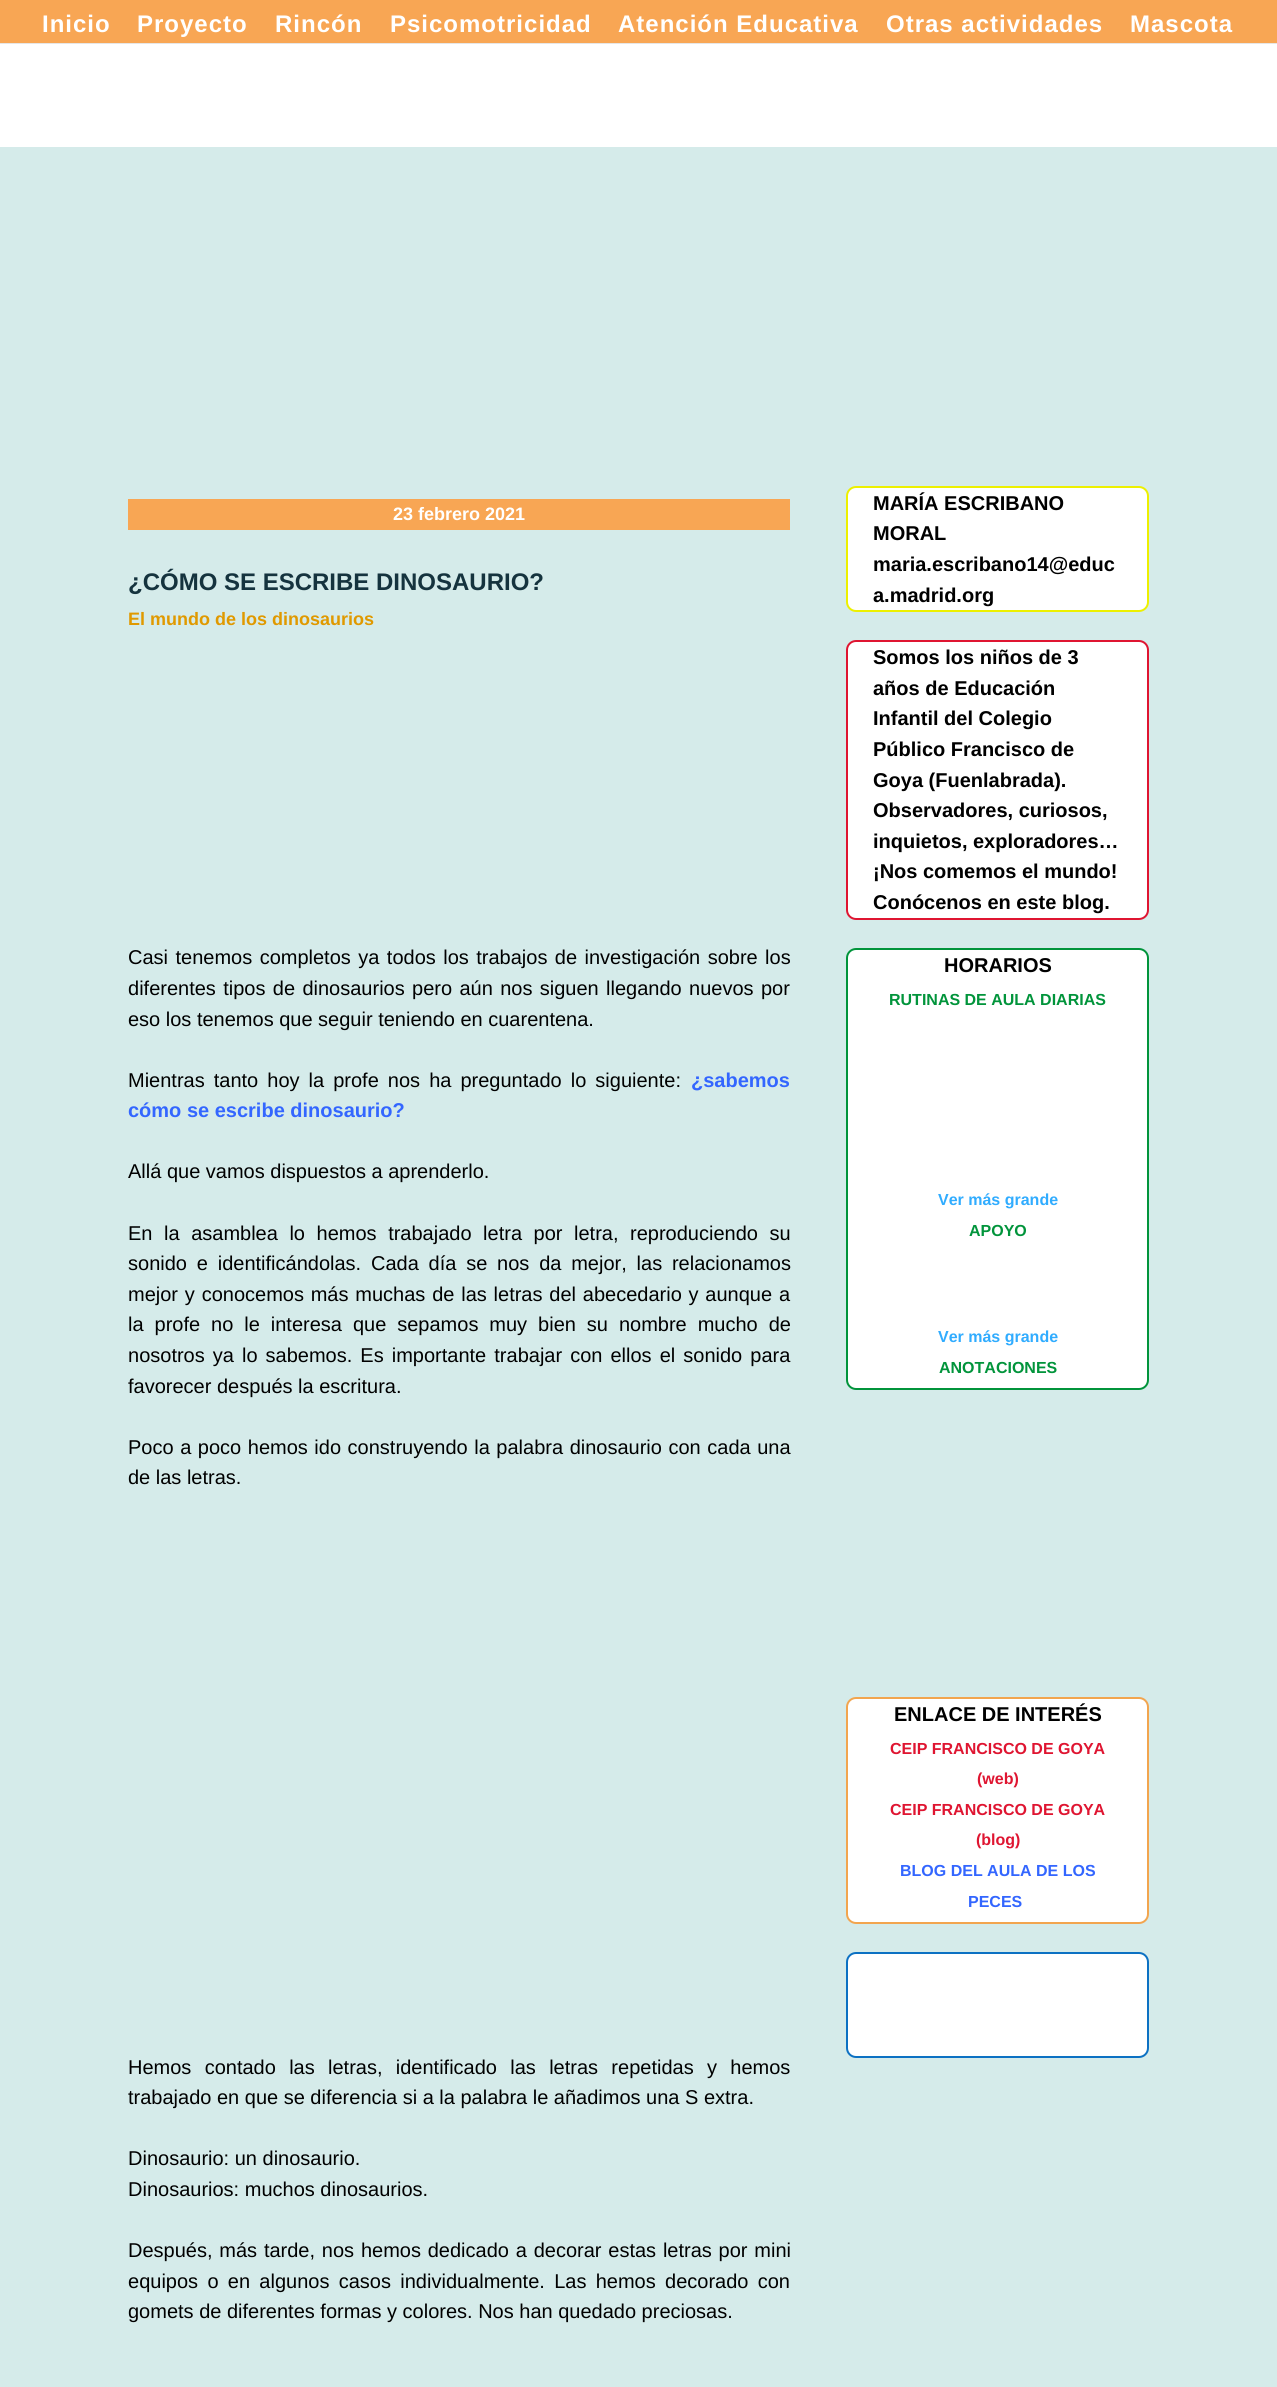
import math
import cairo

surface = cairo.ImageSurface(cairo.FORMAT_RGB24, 1277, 2387)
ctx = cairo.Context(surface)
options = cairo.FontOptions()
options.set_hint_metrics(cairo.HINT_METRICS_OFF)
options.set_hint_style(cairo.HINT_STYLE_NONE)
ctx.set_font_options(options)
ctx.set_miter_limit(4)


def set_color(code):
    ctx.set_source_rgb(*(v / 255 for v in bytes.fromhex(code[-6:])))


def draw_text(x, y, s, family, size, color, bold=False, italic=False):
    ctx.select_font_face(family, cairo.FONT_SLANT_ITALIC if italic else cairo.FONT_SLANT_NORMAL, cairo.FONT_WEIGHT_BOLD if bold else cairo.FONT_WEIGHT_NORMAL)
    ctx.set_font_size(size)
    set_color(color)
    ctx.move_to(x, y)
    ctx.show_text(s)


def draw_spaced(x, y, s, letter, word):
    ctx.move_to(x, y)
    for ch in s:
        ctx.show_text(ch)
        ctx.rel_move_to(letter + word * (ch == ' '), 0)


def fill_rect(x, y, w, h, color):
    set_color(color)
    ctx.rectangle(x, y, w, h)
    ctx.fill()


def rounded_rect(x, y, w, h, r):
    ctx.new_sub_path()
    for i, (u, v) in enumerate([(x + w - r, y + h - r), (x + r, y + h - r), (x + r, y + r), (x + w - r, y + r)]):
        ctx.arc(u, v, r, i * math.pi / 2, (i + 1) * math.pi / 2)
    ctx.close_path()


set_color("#ffffff")
ctx.paint()
fill_rect(0, 43, 1277, 1, "#e6e6e6")
fill_rect(0, 0, 1277, 43, "#f8a654")
ctx.select_font_face("Liberation Sans", cairo.FONT_SLANT_NORMAL, cairo.FONT_WEIGHT_BOLD)
ctx.set_font_size(24)
set_color("#ffffff")
draw_spaced(42, 32, "Inicio", 1, 0)
draw_spaced(137, 32, "Proyecto", 1, 0)
draw_spaced(275, 32, "Rincón", 1, 0)
draw_spaced(390, 32, "Psicomotricidad", 1, 0)
draw_spaced(618, 32, "Atención Educativa", 1, 0)
draw_spaced(886, 32, "Otras actividades", 1, 0)
draw_spaced(1130, 32, "Mascota", 1, 0)
fill_rect(0, 147, 1277, 2240, "#d5ebea")
fill_rect(128, 499, 662, 31, "#f8a654")
draw_text(393, 520, "23 febrero 2021", "Liberation Sans", 18, "#ffffff", bold=True)
draw_text(128, 590, "¿CÓMO SE ESCRIBE DINOSAURIO?", "Liberation Sans", 24, "#15333e", bold=True)
draw_text(128, 625, "El mundo de los dinosaurios", "Liberation Sans", 18, "#e09900", bold=True)
ctx.select_font_face("Liberation Sans")
ctx.set_font_size(20)
set_color("#000000")
draw_spaced(128, 964, "Casi tenemos completos ya todos los trabajos de investigación sobre los", 0, 1.9)
draw_spaced(128, 995, "diferentes tipos de dinosaurios pero aún nos siguen llegando nuevos por", 0, 1.8)
draw_text(128, 1026, "eso los tenemos que seguir teniendo en cuarentena.", "Liberation Sans", 20, "#000000")
draw_spaced(128, 1087, "Mientras tanto hoy la profe nos ha preguntado lo siguiente:", 0, 3.5)
draw_text(691, 1087, "¿sabemos", "Liberation Sans", 20, "#3366ff", bold=True)
draw_text(128, 1117, "cómo se escribe dinosaurio?", "Liberation Sans", 20, "#3366ff", bold=True)
draw_text(128, 1178, "Allá que vamos dispuestos a aprenderlo.", "Liberation Sans", 20, "#000000")
draw_spaced(128, 1240, "En la asamblea lo hemos trabajado letra por letra, reproduciendo su", 0, 6)
draw_spaced(128, 1270, "sonido e identificándolas. Cada día se nos da mejor, las relacionamos", 0, 4.25)
draw_spaced(128, 1301, "mejor y conocemos más muchas de las letras del abecedario y aunque a", 0, 1.25)
draw_spaced(128, 1331, "la profe no le interesa que sepamos muy bien su nombre mucho de", 0, 5.4)
draw_spaced(128, 1362, "nosotros ya lo sabemos. Es importante trabajar con ellos el sonido para", 0, 2.5)
draw_text(128, 1393, "favorecer después la escritura.", "Liberation Sans", 20, "#000000")
draw_spaced(128, 1454, "Poco a poco hemos ido construyendo la palabra dinosaurio con cada una", 0, 1)
draw_text(128, 1484, "de las letras.", "Liberation Sans", 20, "#000000")
draw_spaced(128, 2074, "Hemos contado las letras, identificado las letras repetidas y hemos", 0, 7.75)
draw_text(128, 2104, "trabajado en que se diferencia si a la palabra le añadimos una S extra.", "Liberation Sans", 20, "#000000")
draw_text(128, 2165, "Dinosaurio: un dinosaurio.", "Liberation Sans", 20, "#000000")
draw_text(128, 2196, "Dinosaurios: muchos dinosaurios.", "Liberation Sans", 20, "#000000")
draw_spaced(128, 2257, "Después, más tarde, nos hemos dedicado a decorar estas letras por mini", 0, 1.25)
draw_spaced(128, 2288, "equipos o en algunos casos individualmente. Las hemos decorado con", 0, 3.75)
draw_text(128, 2318, "gomets de diferentes formas y colores. Nos han quedado preciosas.", "Liberation Sans", 20, "#000000")
set_color("#ffffff")
rounded_rect(847, 487, 301, 124, 9)
ctx.fill_preserve()
set_color("#edf000")
ctx.stroke()
draw_text(873, 510, "MARÍA ESCRIBANO", "Liberation Sans", 20, "#000000", bold=True)
draw_text(873, 540, "MORAL", "Liberation Sans", 20, "#000000", bold=True)
draw_text(873, 571, "maria.escribano14@educ", "Liberation Sans", 20, "#000000", bold=True)
draw_text(873, 602, "a.madrid.org", "Liberation Sans", 20, "#000000", bold=True)
set_color("#ffffff")
rounded_rect(847, 641, 301, 278, 9)
ctx.fill_preserve()
set_color("#df1531")
ctx.stroke()
draw_text(873, 664, "Somos los niños de 3", "Liberation Sans", 20, "#000000", bold=True)
draw_text(873, 695, "años de Educación", "Liberation Sans", 20, "#000000", bold=True)
draw_text(873, 725, "Infantil del Colegio", "Liberation Sans", 20, "#000000", bold=True)
draw_text(873, 756, "Público Francisco de", "Liberation Sans", 20, "#000000", bold=True)
draw_text(873, 787, "Goya (Fuenlabrada).", "Liberation Sans", 20, "#000000", bold=True)
draw_text(873, 817, "Observadores, curiosos,", "Liberation Sans", 20, "#000000", bold=True)
draw_text(873, 848, "inquietos, exploradores…", "Liberation Sans", 20, "#000000", bold=True)
draw_text(873, 878, "¡Nos comemos el mundo!", "Liberation Sans", 20, "#000000", bold=True)
draw_text(873, 909, "Conócenos en este blog.", "Liberation Sans", 20, "#000000", bold=True)
set_color("#ffffff")
rounded_rect(847, 949, 301, 440, 9)
ctx.fill_preserve()
set_color("#01943b")
ctx.stroke()
draw_text(944, 972, "HORARIOS", "Liberation Sans", 20, "#000000", bold=True)
draw_text(889, 1005, "RUTINAS DE AULA DIARIAS", "Liberation Sans", 16, "#01943b", bold=True)
draw_text(938, 1205, "Ver más grande", "Liberation Sans", 16, "#30acff", bold=True)
draw_text(969, 1236, "APOYO", "Liberation Sans", 16, "#01943b", bold=True)
draw_text(938, 1342, "Ver más grande", "Liberation Sans", 16, "#30acff", bold=True)
draw_text(939, 1373, "ANOTACIONES", "Liberation Sans", 16, "#01943b", bold=True)
set_color("#ffffff")
rounded_rect(847, 1698, 301, 225, 9)
ctx.fill_preserve()
set_color("#f2a54f")
ctx.stroke()
draw_text(894, 1721, "ENLACE DE INTERÉS", "Liberation Sans", 20, "#000000", bold=True)
draw_text(890, 1754, "CEIP FRANCISCO DE GOYA", "Liberation Sans", 16, "#df1531", bold=True)
draw_text(977, 1784, "(web)", "Liberation Sans", 16, "#df1531", bold=True)
draw_text(890, 1815, "CEIP FRANCISCO DE GOYA", "Liberation Sans", 16, "#df1531", bold=True)
draw_text(976, 1845, "(blog)", "Liberation Sans", 16, "#df1531", bold=True)
draw_text(900, 1876, "BLOG DEL AULA DE LOS", "Liberation Sans", 16, "#3366ff", bold=True)
draw_text(968, 1907, "PECES", "Liberation Sans", 16, "#3366ff", bold=True)
set_color("#ffffff")
rounded_rect(847, 1953, 301, 104, 9)
ctx.fill_preserve()
set_color("#0c71c3")
ctx.stroke()
surface.write_to_png("output.png")
